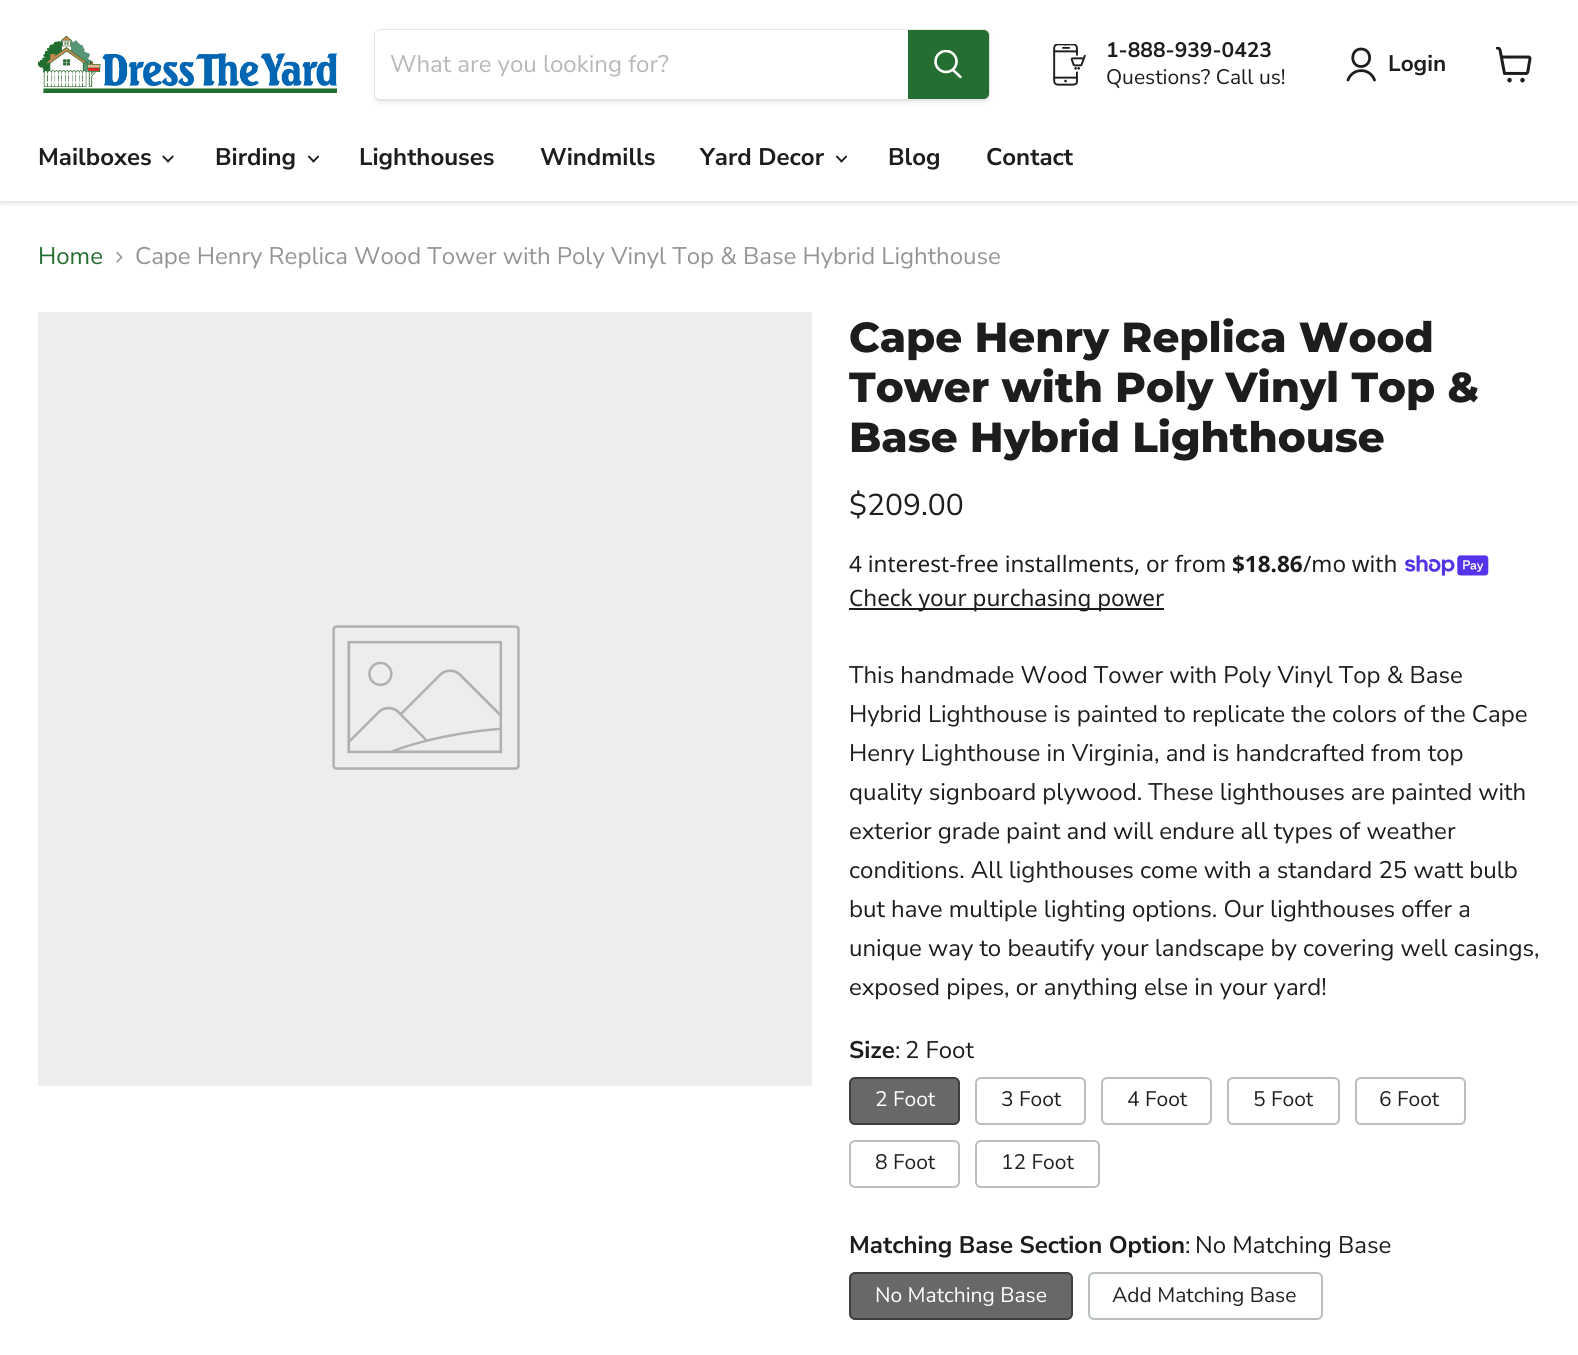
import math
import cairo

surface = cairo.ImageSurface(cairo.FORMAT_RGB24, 1578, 1355)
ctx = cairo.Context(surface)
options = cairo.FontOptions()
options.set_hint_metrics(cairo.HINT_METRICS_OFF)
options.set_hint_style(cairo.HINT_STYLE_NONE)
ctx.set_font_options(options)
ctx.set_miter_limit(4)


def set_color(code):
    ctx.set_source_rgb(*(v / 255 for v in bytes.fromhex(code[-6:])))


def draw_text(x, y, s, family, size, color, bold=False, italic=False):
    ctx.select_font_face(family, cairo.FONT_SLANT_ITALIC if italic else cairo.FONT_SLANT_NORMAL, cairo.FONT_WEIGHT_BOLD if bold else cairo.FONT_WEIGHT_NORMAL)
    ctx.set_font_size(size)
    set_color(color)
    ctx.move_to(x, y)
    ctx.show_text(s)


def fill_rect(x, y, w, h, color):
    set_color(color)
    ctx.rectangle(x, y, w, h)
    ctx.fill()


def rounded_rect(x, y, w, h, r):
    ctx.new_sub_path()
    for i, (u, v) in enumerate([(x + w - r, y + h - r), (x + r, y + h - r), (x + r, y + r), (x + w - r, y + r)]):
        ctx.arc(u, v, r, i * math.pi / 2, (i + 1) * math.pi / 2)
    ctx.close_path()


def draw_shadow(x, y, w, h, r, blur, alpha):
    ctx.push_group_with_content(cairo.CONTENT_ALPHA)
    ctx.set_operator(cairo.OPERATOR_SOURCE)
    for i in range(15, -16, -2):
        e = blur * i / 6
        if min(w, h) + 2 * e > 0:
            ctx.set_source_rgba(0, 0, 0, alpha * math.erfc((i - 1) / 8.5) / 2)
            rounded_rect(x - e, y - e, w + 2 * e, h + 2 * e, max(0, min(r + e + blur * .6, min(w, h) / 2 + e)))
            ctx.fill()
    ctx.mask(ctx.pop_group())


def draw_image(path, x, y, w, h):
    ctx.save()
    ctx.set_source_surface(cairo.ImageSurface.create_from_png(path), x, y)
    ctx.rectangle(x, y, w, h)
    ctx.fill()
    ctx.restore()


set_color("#ffffff")
ctx.paint()
ctx.save()
ctx.rectangle(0, 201, 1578, 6)
ctx.clip()
set_color("#808080")
draw_shadow(0, 2, 1578, 201, 0, 3, 0.25)
ctx.restore()
draw_image("assets/img1.png", 38, 36, 299, 57)
ctx.save()
ctx.set_fill_rule(cairo.FILL_RULE_EVEN_ODD)
ctx.new_path()
ctx.move_to(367, 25)
ctx.line_to(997, 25)
ctx.line_to(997, 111)
ctx.line_to(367, 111)
ctx.close_path()
ctx.move_to(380, 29)
ctx.line_to(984, 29)
ctx.curve_to(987.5, 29, 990, 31.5, 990, 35)
ctx.line_to(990, 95)
ctx.curve_to(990, 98.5, 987.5, 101, 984, 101)
ctx.line_to(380, 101)
ctx.curve_to(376.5, 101, 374, 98.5, 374, 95)
ctx.line_to(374, 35)
ctx.curve_to(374, 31.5, 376.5, 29, 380, 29)
ctx.close_path()
ctx.clip()
set_color("#808080")
draw_shadow(374, 32, 616, 72, 6, 2, 0.11)
ctx.restore()
rounded_rect(375, 30, 614, 70, 5)
ctx.set_source_rgba(0.502, 0.502, 0.502, 0.2)
ctx.stroke()
set_color("#ffffff")
ctx.new_path()
ctx.move_to(380, 30)
ctx.line_to(908, 30)
ctx.line_to(908, 99)
ctx.line_to(380, 99)
ctx.curve_to(377, 99, 375, 97, 375, 94)
ctx.line_to(375, 35)
ctx.curve_to(375, 32, 377, 30, 380, 30)
ctx.close_path()
ctx.fill()
draw_text(390, 72, "What are you looking for?", "Nunito Sans", 24, "#b8b8b8")
set_color("#256e31")
ctx.new_path()
ctx.move_to(909, 31)
ctx.line_to(984, 31)
ctx.curve_to(986, 31, 988, 33, 988, 35)
ctx.line_to(988, 94)
ctx.curve_to(988, 96, 986, 98, 984, 98)
ctx.line_to(909, 98)
ctx.close_path()
ctx.fill_preserve()
ctx.stroke()
ctx.new_path()
ctx.move_to(960.5, 77)
ctx.line_to(953, 70)
set_color("#ffffff")
ctx.set_line_width(2.6)
ctx.set_line_cap(cairo.LINE_CAP_ROUND)
ctx.stroke()
ctx.save()
ctx.rectangle(933, 50, 30, 31)
ctx.clip()
ctx.arc(946, 61.5, 10.5, 0, 2 * math.pi)
ctx.set_line_cap(cairo.LINE_CAP_BUTT)
ctx.stroke()
ctx.restore()
draw_image("assets/img2.png", 1053, 44, 33, 42)
draw_text(1106, 57, "1-888-939-0423", "Nunito Sans", 21, "#1d1d1d", bold=True)
draw_text(1106, 84, "Questions? Call us!", "Nunito Sans", 21, "#1d1d1d")
ctx.new_path()
ctx.move_to(1361, 66.5)
ctx.curve_to(1372.5, 66.5, 1372.5, 49, 1361, 49)
ctx.curve_to(1350, 49, 1350, 66.5, 1361, 66.5)
ctx.close_path()
ctx.move_to(1374.5, 80)
ctx.curve_to(1370, 67.5, 1352.5, 67.5, 1348, 80)
ctx.set_line_width(2.8)
ctx.set_line_join(cairo.LINE_JOIN_ROUND)
ctx.stroke()
draw_text(1388, 71, "Login", "Nunito Sans", 22.5, "#1d1d1d", bold=True)
draw_image("assets/img3.png", 1496, 47, 36, 36)
draw_text(38, 165, "Mailboxes", "Nunito Sans", 24, "#1d1d1d", bold=True)
draw_image("assets/img4.png", 162, 155, 12, 8)
draw_text(215, 165, "Birding", "Nunito Sans", 24, "#1d1d1d", bold=True)
draw_image("assets/img5.png", 308, 155, 12, 8)
draw_text(359, 165, "Lighthouses", "Nunito Sans", 24, "#1d1d1d", bold=True)
draw_text(540, 165, "Windmills", "Nunito Sans", 24, "#1d1d1d", bold=True)
draw_text(700, 165, "Yard Decor", "Nunito Sans", 24, "#1d1d1d", bold=True)
draw_image("assets/img5.png", 836, 155, 12, 8)
draw_text(888, 165, "Blog", "Nunito Sans", 24, "#1d1d1d", bold=True)
draw_text(986, 165, "Contact", "Nunito Sans", 24, "#1d1d1d", bold=True)
draw_text(38, 264, "Home", "Nunito Sans", 24, "#256e31")
draw_image("assets/img6.png", 116, 251, 7, 12)
draw_text(135, 264, "Cape Henry Replica Wood Tower with Poly Vinyl Top & Base Hybrid Lighthouse", "Nunito Sans", 24, "#949494")
fill_rect(38, 312, 774, 774, "#ededed")
draw_image("assets/img7.png", 332, 625, 188, 145)
draw_text(849, 352, "Cape Henry Replica Wood", "Montserrat ExtraBold", 42, "#1d1d1d")
draw_text(849, 402, "Tower with Poly Vinyl Top &", "Montserrat ExtraBold", 42, "#1d1d1d")
draw_text(849, 452, "Base Hybrid Lighthouse", "Montserrat ExtraBold", 42, "#1d1d1d")
draw_text(849, 515, "$209.00", "Nunito Sans", 30, "#1d1d1d")
draw_text(849, 572, "4 interest-free installments, or from", "Noto Sans", 22.5, "#1d1d1d")
draw_text(1232, 572, "$18.86", "Noto Sans", 22.5, "#1d1d1d", bold=True)
draw_text(1303, 572, "/mo with", "Noto Sans", 22.5, "#1d1d1d")
draw_image("assets/img8.png", 1405, 555, 84, 21)
fill_rect(849, 608, 315, 2, "#1d1d1d")
draw_text(849, 606, "Check your purchasing power", "Noto Sans", 22.5, "#1d1d1d")
draw_text(849, 683, "This handmade Wood Tower with Poly Vinyl Top & Base", "Nunito Sans", 24, "#1d1d1d")
draw_text(849, 722, "Hybrid Lighthouse is painted to replicate the colors of the Cape", "Nunito Sans", 24, "#1d1d1d")
draw_text(849, 761, "Henry Lighthouse in Virginia, and is handcrafted from top", "Nunito Sans", 24, "#1d1d1d")
draw_text(849, 800, "quality signboard plywood. These lighthouses are painted with", "Nunito Sans", 24, "#1d1d1d")
draw_text(849, 839, "exterior grade paint and will endure all types of weather", "Nunito Sans", 24, "#1d1d1d")
draw_text(849, 878, "conditions. All lighthouses come with a standard 25 watt bulb", "Nunito Sans", 24, "#1d1d1d")
draw_text(849, 917, "but have multiple lighting options. Our lighthouses offer a", "Nunito Sans", 24, "#1d1d1d")
draw_text(849, 956, "unique way to beautify your landscape by covering well casings,", "Nunito Sans", 24, "#1d1d1d")
draw_text(849, 995, "exposed pipes, or anything else in your yard!", "Nunito Sans", 24, "#1d1d1d")
draw_text(849, 1058, "Size", "Nunito Sans", 24, "#1d1d1d", bold=True)
draw_text(895, 1058, ":", "Nunito Sans", 24, "#1d1d1d")
draw_text(905, 1058, "2 Foot", "Nunito Sans", 24, "#1d1d1d")
set_color("#686868")
rounded_rect(850, 1078, 109, 46, 5)
ctx.fill_preserve()
set_color("#3e3e3e")
ctx.set_line_width(2)
ctx.set_line_cap(cairo.LINE_CAP_BUTT)
ctx.set_line_join(cairo.LINE_JOIN_MITER)
ctx.stroke()
draw_text(875, 1106, "2 Foot", "Nunito Sans", 21, "#ffffff")
rounded_rect(976, 1078, 109, 46, 5)
set_color("#babfc3")
ctx.stroke()
draw_text(1001, 1106, "3 Foot", "Nunito Sans", 21, "#202223")
rounded_rect(1102, 1078, 109, 46, 5)
set_color("#babfc3")
ctx.stroke()
draw_text(1127, 1106, "4 Foot", "Nunito Sans", 21, "#202223")
rounded_rect(1228, 1078, 111, 46, 5)
set_color("#babfc3")
ctx.stroke()
draw_text(1253, 1106, "5 Foot", "Nunito Sans", 21, "#202223")
rounded_rect(1356, 1078, 109, 46, 5)
set_color("#babfc3")
ctx.stroke()
draw_text(1379, 1106, "6 Foot", "Nunito Sans", 21, "#202223")
rounded_rect(850, 1141, 109, 46, 5)
set_color("#babfc3")
ctx.stroke()
draw_text(875, 1169, "8 Foot", "Nunito Sans", 21, "#202223")
rounded_rect(976, 1141, 123, 46, 5)
set_color("#babfc3")
ctx.stroke()
draw_text(1001, 1169, "12 Foot", "Nunito Sans", 21, "#202223")
draw_text(849, 1253, "Matching Base Section Option", "Nunito Sans", 24, "#1d1d1d", bold=True)
draw_text(1185, 1253, ":", "Nunito Sans", 24, "#1d1d1d")
draw_text(1195, 1253, "No Matching Base", "Nunito Sans", 24, "#1d1d1d")
set_color("#686868")
rounded_rect(850, 1273, 222, 46, 5)
ctx.fill_preserve()
set_color("#3e3e3e")
ctx.stroke()
draw_text(875, 1302, "No Matching Base", "Nunito Sans", 21, "#ffffff")
rounded_rect(1089, 1273, 233, 46, 5)
set_color("#babfc3")
ctx.stroke()
draw_text(1112, 1302, "Add Matching Base", "Nunito Sans", 21, "#202223")
surface.write_to_png("output.png")
